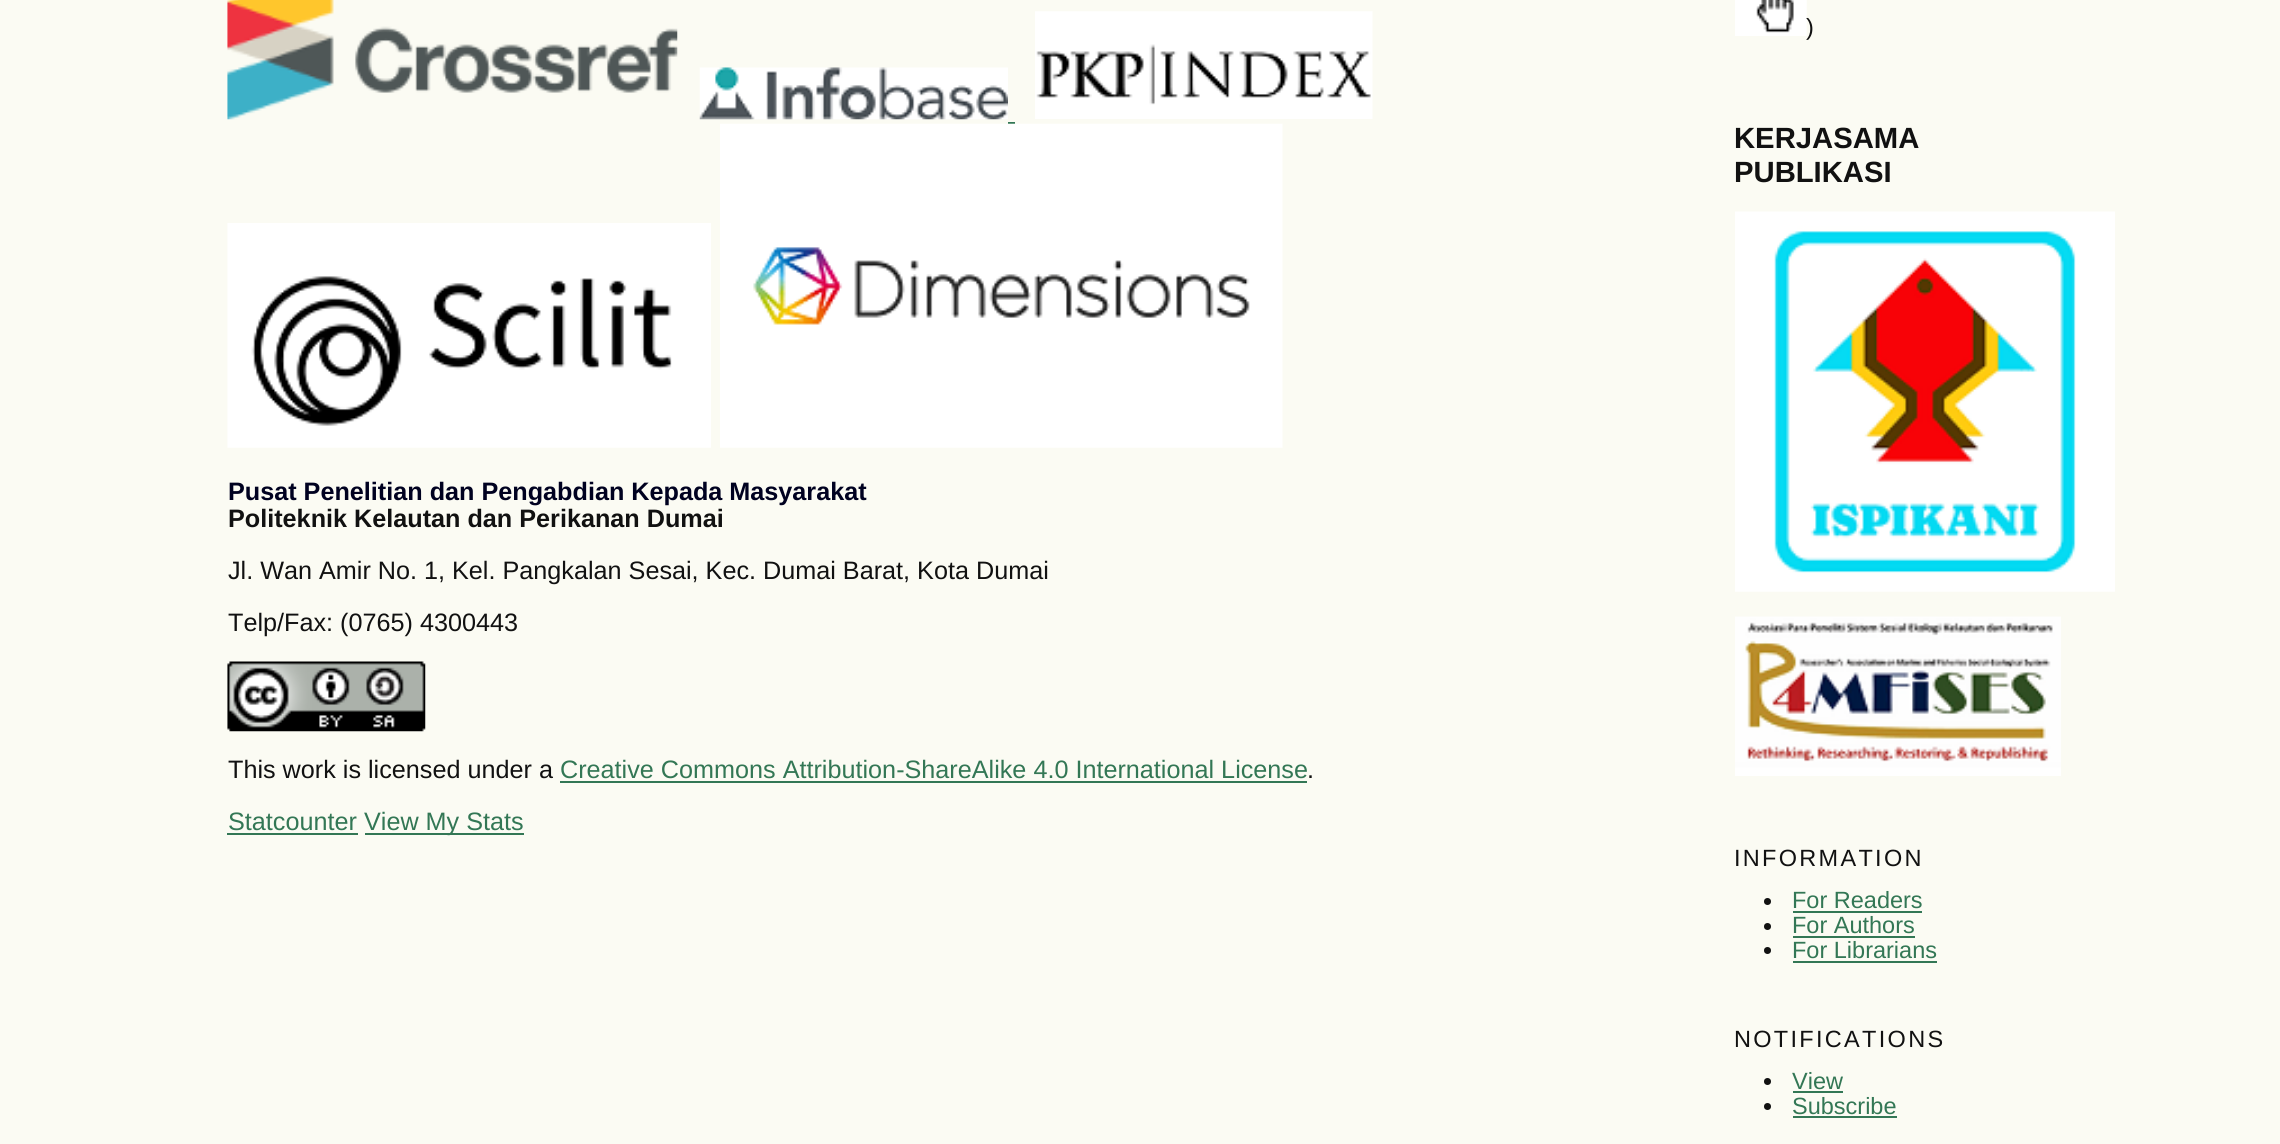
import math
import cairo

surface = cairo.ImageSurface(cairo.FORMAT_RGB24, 2280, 1144)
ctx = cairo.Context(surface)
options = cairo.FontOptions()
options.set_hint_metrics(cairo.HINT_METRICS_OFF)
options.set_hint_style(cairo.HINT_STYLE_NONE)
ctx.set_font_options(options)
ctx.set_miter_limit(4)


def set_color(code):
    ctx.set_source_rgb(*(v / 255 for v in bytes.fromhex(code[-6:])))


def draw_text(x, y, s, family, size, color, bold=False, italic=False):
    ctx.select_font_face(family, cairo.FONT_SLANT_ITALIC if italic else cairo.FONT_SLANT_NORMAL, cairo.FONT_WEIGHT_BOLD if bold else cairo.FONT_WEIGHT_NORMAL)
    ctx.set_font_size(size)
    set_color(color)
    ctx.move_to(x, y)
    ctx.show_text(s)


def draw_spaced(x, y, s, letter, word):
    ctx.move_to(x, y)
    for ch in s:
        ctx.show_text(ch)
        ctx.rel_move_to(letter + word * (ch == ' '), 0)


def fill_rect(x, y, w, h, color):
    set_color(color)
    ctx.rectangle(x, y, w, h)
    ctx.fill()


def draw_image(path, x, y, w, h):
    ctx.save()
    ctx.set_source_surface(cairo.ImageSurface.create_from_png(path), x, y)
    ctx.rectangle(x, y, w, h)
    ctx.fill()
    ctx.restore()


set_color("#fbfbf3")
ctx.paint()
draw_image("assets/img1.png", 227, 0, 451, 120)
draw_image("assets/img2.png", 699, 67, 309, 53)
draw_image("assets/img3.png", 1035, 11, 338, 108)
fill_rect(1008, 122, 7, 2, "#337755")
draw_image("assets/img4.png", 227, 223, 484, 225)
draw_image("assets/img5.png", 720, 123, 563, 325)
draw_text(228, 500, "Pusat Penelitian dan Pengabdian Kepada Masyarakat", "Liberation Sans", 25.2, "#000120", bold=True)
draw_text(228, 527, "Politeknik Kelautan dan Perikanan Dumai", "Liberation Sans", 25.2, "#111111", bold=True)
draw_text(228, 579, "Jl. Wan Amir No. 1, Kel. Pangkalan Sesai, Kec. Dumai Barat, Kota Dumai", "Liberation Sans", 25.2, "#111111")
draw_text(228, 631, "Telp/Fax: (0765) 4300443", "Liberation Sans", 25.2, "#111111")
draw_image("assets/img6.png", 227, 661, 199, 71)
draw_text(228, 778, "This work is licensed under a", "Liberation Sans", 25.2, "#111111")
draw_text(560, 778, "Creative Commons Attribution-ShareAlike 4.0 International License", "Liberation Sans", 25.2, "#337755")
fill_rect(560, 781, 747, 2, "#337755")
draw_text(1307, 778, ".", "Liberation Sans", 25.2, "#111111")
draw_text(228, 830, "Statcounter", "Liberation Sans", 25.2, "#337755")
fill_rect(227, 833, 131, 2, "#337755")
fill_rect(365, 833, 159, 2, "#337755")
draw_text(364, 830, "View My Stats", "Liberation Sans", 25.2, "#337755")
draw_image("assets/img7.png", 1735, 0, 72, 36)
draw_text(1806, 35, ")", "Liberation Sans", 23.5, "#111111")
draw_text(1734, 148, "KERJASAMA", "Liberation Sans", 29.25, "#111111", bold=True)
draw_text(1734, 182, "PUBLIKASI", "Liberation Sans", 29.25, "#111111", bold=True)
draw_image("assets/img8.png", 1735, 211, 380, 381)
draw_image("assets/img9.png", 1735, 616, 326, 160)
ctx.select_font_face("Liberation Sans")
ctx.set_font_size(23.5)
draw_spaced(1734, 866, "INFORMATION", 2.3, 0)
ctx.new_path()
ctx.arc(1767.5, 901.5, 3.5, 0, 2 * math.pi)
ctx.fill()
draw_text(1792, 908, "For Readers", "Liberation Sans", 23.5, "#337755")
fill_rect(1793, 911, 129, 2, "#337755")
set_color("#111111")
ctx.new_path()
ctx.arc(1767.5, 926.5, 3.5, 0, 2 * math.pi)
ctx.fill()
draw_text(1792, 933, "For Authors", "Liberation Sans", 23.5, "#337755")
fill_rect(1793, 936, 122, 2, "#337755")
set_color("#111111")
ctx.new_path()
ctx.arc(1767.5, 950.5, 3.5, 0, 2 * math.pi)
ctx.fill()
draw_text(1792, 958, "For Librarians", "Liberation Sans", 23.5, "#337755")
fill_rect(1793, 961, 144, 2, "#337755")
set_color("#111111")
draw_spaced(1734, 1047, "NOTIFICATIONS", 2.3, 0)
ctx.new_path()
ctx.arc(1767.5, 1081.5, 3.5, 0, 2 * math.pi)
ctx.fill()
draw_text(1792, 1089, "View", "Liberation Sans", 23.5, "#337755")
fill_rect(1793, 1091, 50, 2, "#337755")
set_color("#111111")
ctx.new_path()
ctx.arc(1767.5, 1106.5, 3.5, 0, 2 * math.pi)
ctx.fill()
draw_text(1792, 1114, "Subscribe", "Liberation Sans", 23.5, "#337755")
fill_rect(1793, 1116, 104, 2, "#337755")
surface.write_to_png("output.png")
